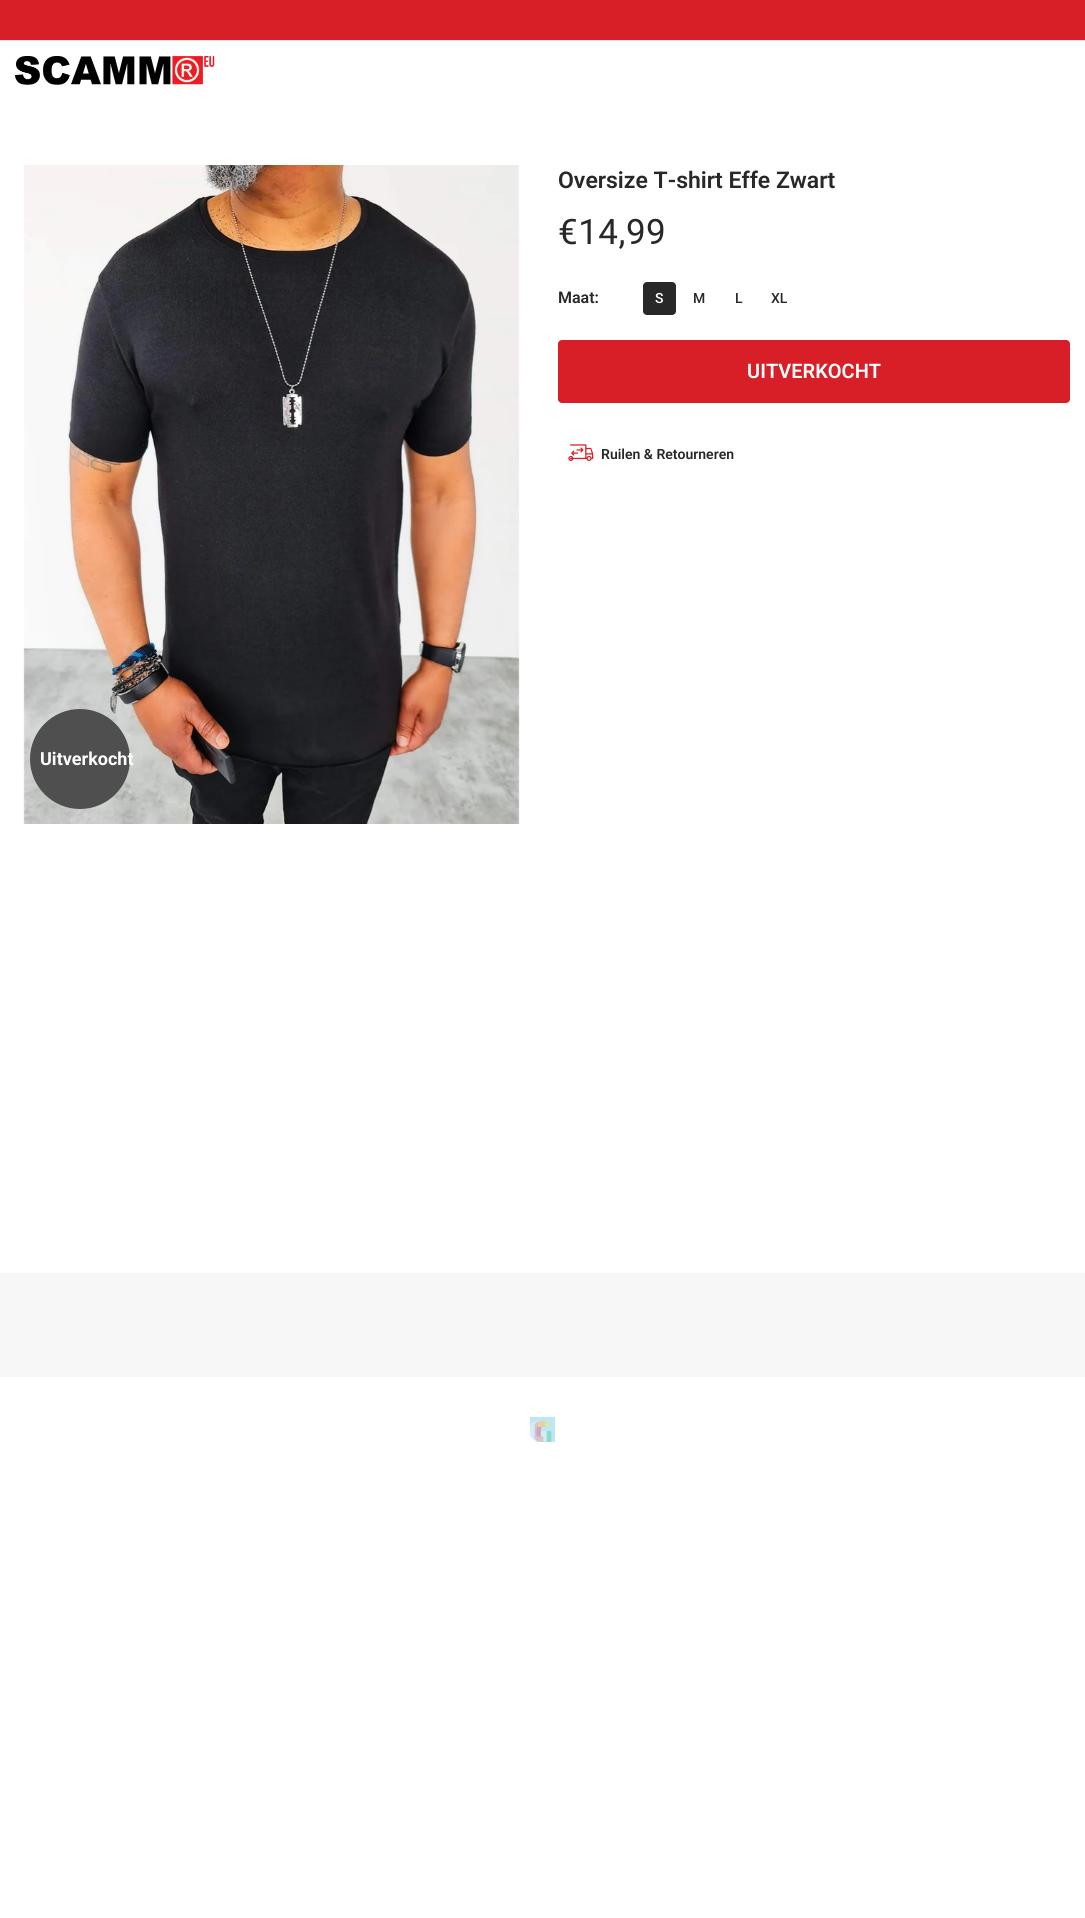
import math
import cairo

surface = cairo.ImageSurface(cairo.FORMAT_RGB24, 1085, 1918)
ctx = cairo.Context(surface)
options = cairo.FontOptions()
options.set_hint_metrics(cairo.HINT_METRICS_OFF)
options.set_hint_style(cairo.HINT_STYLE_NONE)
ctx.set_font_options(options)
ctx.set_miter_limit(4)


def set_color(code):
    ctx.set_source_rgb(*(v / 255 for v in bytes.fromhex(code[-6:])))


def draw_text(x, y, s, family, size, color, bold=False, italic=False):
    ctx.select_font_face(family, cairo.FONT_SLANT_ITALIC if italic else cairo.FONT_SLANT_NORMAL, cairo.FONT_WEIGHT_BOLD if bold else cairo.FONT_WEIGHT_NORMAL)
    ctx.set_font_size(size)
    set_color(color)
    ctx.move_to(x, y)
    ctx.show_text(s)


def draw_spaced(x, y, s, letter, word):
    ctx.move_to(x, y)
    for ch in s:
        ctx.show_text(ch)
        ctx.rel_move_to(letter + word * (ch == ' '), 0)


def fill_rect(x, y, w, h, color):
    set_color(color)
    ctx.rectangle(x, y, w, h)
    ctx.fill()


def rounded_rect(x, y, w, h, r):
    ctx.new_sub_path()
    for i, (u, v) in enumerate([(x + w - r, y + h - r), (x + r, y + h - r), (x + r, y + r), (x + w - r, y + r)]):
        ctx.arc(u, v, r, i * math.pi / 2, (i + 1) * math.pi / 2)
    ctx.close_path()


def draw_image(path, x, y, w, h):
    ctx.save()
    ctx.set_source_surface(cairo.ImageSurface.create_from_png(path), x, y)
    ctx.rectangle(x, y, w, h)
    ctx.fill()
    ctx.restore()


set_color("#ffffff")
ctx.paint()
fill_rect(0, 0, 1085, 40, "#d81f27")
fill_rect(0, 40, 1085, 1, "#e8e8e8")
draw_image("assets/img1.png", 15, 56, 200, 29)
draw_text(558, 188, "Oversize T-shirt Effe Zwart", "Roboto SemiBold", 23, "#282828")
ctx.select_font_face("Roboto")
ctx.set_font_size(35)
draw_spaced(558, 244, "€14,99", 0.5, 0)
draw_text(558, 303, "Maat:", "Roboto SemiBold", 16, "#282828")
rounded_rect(643, 282, 33, 33, 4)
ctx.fill()
draw_text(655, 303, "S", "Roboto Medium", 14, "#ffffff")
draw_text(693, 303, "M", "Roboto Medium", 14, "#282828")
draw_text(735, 303, "L", "Roboto Medium", 14, "#282828")
draw_text(771, 303, "XL", "Roboto Medium", 14, "#282828")
set_color("#d81f27")
rounded_rect(558, 340, 512, 63, 4)
ctx.fill()
draw_text(747, 378, "UITVERKOCHT", "Roboto SemiBold", 20, "#ffffff")
draw_image("assets/img2.png", 568, 444, 26, 17)
draw_text(601, 459, "Ruilen & Retourneren", "Roboto SemiBold", 14, "#282828")
draw_image("assets/img3.png", 23, 165, 497, 659)
set_color("#4f4f4f")
ctx.arc(80, 759, 50, 0, 2 * math.pi)
ctx.fill()
draw_text(40, 765, "Uitverkocht", "Roboto", 18, "#ffffff", bold=True)
fill_rect(0, 1273, 1085, 104, "#f7f7f7")
draw_image("assets/img4.png", 530, 1417, 25, 25)
surface.write_to_png("output.png")
